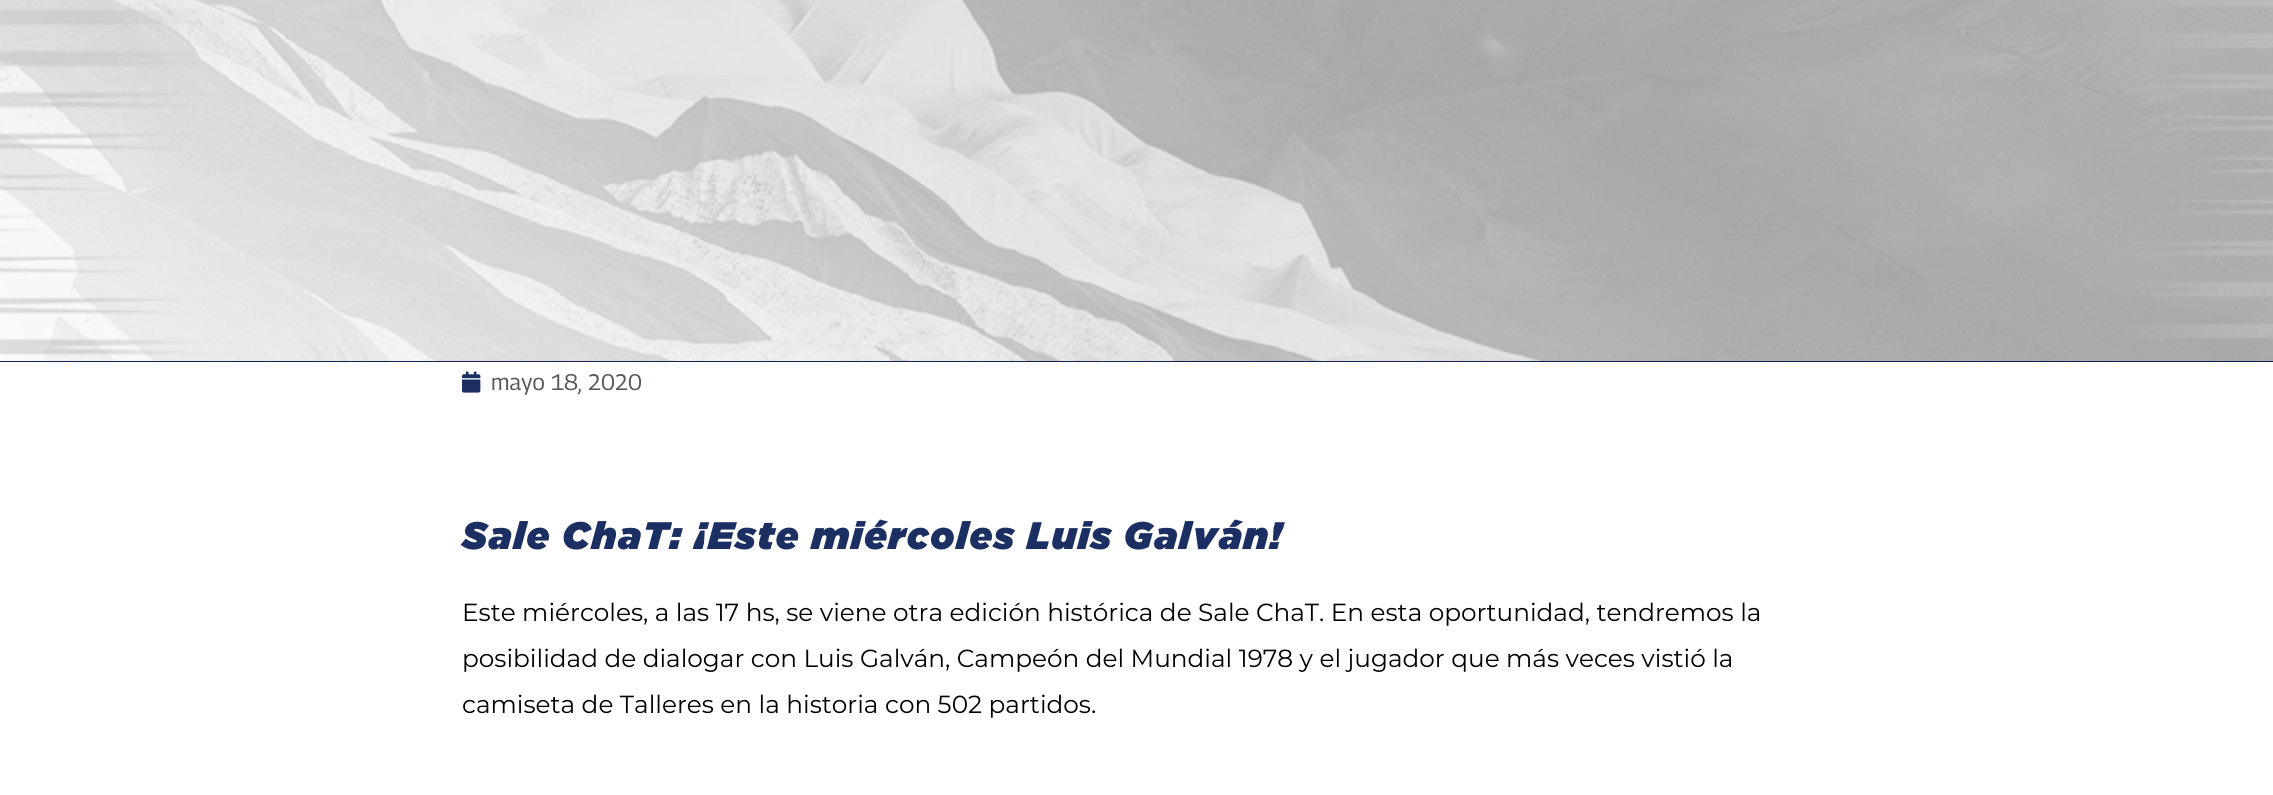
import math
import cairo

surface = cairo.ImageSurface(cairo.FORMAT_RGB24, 2273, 795)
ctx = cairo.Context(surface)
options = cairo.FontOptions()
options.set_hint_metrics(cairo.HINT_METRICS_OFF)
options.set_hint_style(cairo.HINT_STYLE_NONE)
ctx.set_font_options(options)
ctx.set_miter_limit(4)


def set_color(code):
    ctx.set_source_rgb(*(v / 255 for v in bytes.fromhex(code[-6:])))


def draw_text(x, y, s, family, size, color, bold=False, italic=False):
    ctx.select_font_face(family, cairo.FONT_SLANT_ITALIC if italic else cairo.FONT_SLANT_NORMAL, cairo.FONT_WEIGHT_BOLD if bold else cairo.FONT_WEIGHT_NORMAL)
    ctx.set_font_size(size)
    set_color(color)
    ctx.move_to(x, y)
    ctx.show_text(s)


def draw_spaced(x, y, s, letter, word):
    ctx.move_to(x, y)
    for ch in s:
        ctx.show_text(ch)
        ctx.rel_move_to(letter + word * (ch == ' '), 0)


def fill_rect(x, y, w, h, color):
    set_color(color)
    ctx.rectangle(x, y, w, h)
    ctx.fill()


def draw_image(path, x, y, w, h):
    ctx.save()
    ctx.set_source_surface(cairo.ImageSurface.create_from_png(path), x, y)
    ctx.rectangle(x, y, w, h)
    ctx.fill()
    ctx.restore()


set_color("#ffffff")
ctx.paint()
fill_rect(0, 361, 2273, 1, "#11224e")
draw_image("assets/img1.png", 0, 0, 2273, 361)
draw_image("assets/img2.png", 462, 371, 19, 22)
draw_text(491, 390, "mayo 18, 2020", "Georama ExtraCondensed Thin", 22.5, "#54595f")
ctx.select_font_face("Gotham Medium", cairo.FONT_SLANT_ITALIC)
ctx.set_font_size(38.25)
set_color("#1b2f62")
draw_spaced(462, 549, "Sale ChaT: ¡Este miércoles Luis Galván!", 1.65, 0)
draw_text(462, 621, "Este miércoles, a las 17 hs, se viene otra edición histórica de Sale ChaT. En esta oportunidad, tendremos la", "Montserrat", 24.75, "#000000")
draw_text(462, 667, "posibilidad de dialogar con Luis Galván, Campeón del Mundial 1978 y el jugador que más veces vistió la", "Montserrat", 24.75, "#000000")
draw_text(462, 713, "camiseta de Talleres en la historia con 502 partidos.", "Montserrat", 24.75, "#000000")
surface.write_to_png("output.png")
